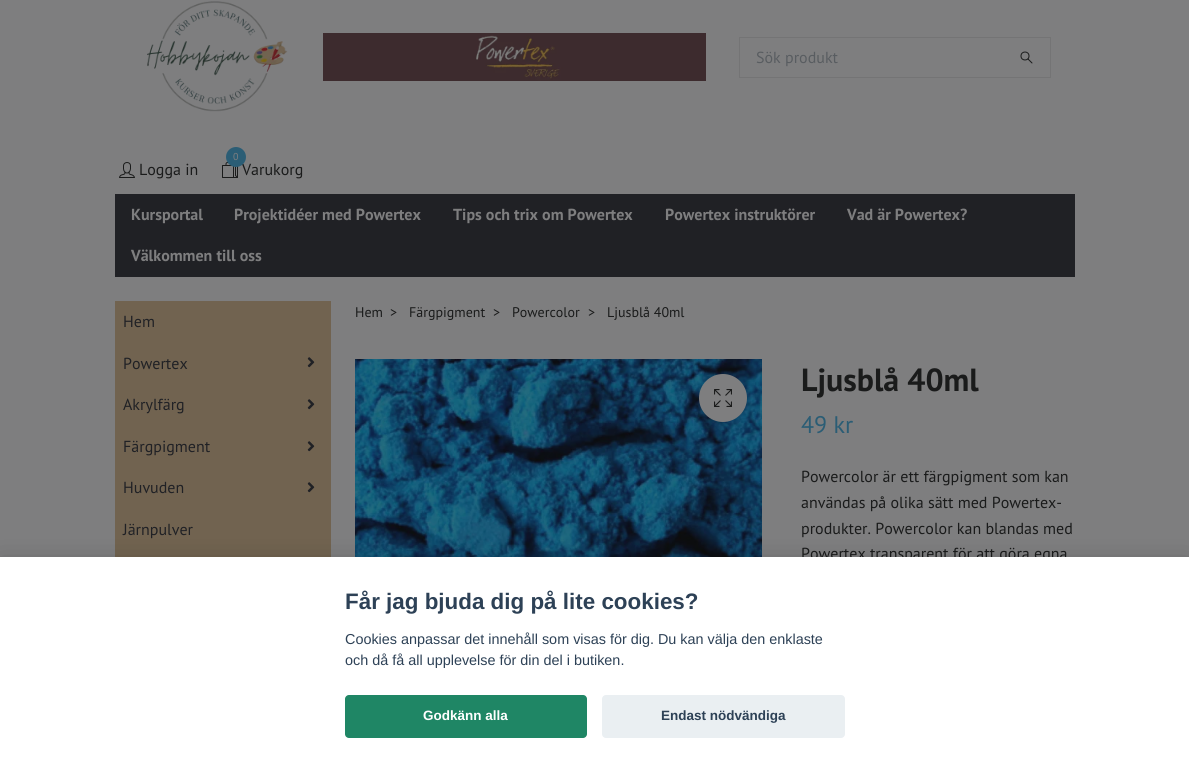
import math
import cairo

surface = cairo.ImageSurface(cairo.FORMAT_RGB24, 1189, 770)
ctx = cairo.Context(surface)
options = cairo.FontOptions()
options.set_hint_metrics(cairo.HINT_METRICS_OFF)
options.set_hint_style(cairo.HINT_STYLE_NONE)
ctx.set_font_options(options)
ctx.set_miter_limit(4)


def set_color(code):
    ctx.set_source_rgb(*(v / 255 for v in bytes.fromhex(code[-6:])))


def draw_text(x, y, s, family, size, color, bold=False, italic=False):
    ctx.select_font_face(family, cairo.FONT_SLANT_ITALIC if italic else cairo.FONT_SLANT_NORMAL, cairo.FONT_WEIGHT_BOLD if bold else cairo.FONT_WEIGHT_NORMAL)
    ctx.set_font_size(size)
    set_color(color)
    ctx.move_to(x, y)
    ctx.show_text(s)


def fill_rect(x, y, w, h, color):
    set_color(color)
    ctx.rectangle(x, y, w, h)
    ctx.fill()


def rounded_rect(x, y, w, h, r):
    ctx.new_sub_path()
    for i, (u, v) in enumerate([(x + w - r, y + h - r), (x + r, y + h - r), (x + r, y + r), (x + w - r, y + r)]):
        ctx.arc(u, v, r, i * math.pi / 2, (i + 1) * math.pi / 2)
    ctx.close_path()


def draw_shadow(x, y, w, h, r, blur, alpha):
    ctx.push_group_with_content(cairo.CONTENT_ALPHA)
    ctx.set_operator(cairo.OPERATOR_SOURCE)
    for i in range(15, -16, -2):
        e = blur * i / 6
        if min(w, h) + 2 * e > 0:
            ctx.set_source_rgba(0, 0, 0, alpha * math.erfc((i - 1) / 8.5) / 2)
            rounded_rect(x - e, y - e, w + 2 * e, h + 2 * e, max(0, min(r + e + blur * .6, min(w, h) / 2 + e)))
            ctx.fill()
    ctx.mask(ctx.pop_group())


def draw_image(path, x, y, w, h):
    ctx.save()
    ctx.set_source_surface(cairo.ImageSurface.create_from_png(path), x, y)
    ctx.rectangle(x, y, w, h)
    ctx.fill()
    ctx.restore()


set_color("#7e7e7f")
ctx.paint()
draw_image("assets/img1.png", 147, 1, 141, 111)
draw_image("assets/img2.png", 323, 33, 383, 48)
ctx.rectangle(739.5, 37.5, 311, 40)
set_color("#747475")
ctx.set_line_width(1)
ctx.stroke()
draw_text(756, 63, "Sök produkt", "PT Sans", 16, "#595d61")
ctx.new_path()
ctx.move_to(1028, 59)
ctx.line_to(1032, 63)
set_color("#1a1b1b")
ctx.set_line_cap(cairo.LINE_CAP_ROUND)
ctx.set_line_join(cairo.LINE_JOIN_ROUND)
ctx.stroke()
ctx.arc(1025, 56, 4, 0, 2 * math.pi)
ctx.set_line_cap(cairo.LINE_CAP_BUTT)
ctx.set_line_join(cairo.LINE_JOIN_MITER)
ctx.stroke()
draw_image("assets/img3.png", 119, 162, 16, 16)
draw_text(139, 175, "Logga in", "PT Sans", 16, "#1a1b1b")
draw_image("assets/img4.png", 222, 162, 16, 16)
draw_text(242, 175, "Varukorg", "PT Sans", 16, "#1a1b1b")
set_color("#2b5d75")
ctx.new_path()
ctx.arc(236, 157, 10, 0, 2 * math.pi)
ctx.fill()
draw_text(233, 160, "0", "PT Sans", 10, "#7e7e7f")
fill_rect(115, 194, 960, 83, "#202125")
draw_text(131, 220, "Kursportal", "PT Sans", 16, "#7e7e7f", bold=True)
draw_text(234, 220, "Projektidéer med Powertex", "PT Sans", 16, "#7e7e7f", bold=True)
draw_text(453, 220, "Tips och trix om Powertex", "PT Sans", 16, "#7e7e7f", bold=True)
draw_text(665, 220, "Powertex instruktörer", "PT Sans", 16, "#7e7e7f", bold=True)
draw_text(847, 220, "Vad är Powertex?", "PT Sans", 16, "#7e7e7f", bold=True)
draw_text(131, 261, "Välkommen till oss", "PT Sans", 16, "#7e7e7f", bold=True)
fill_rect(115, 301, 216, 256, "#716350")
draw_text(123, 327, "Hem", "PT Sans", 16, "#202125")
draw_text(123, 369, "Powertex", "PT Sans", 16, "#202125")
draw_image("assets/img5.png", 307, 357, 8, 11)
draw_text(123, 410, "Akrylfärg", "PT Sans", 16, "#202125")
draw_image("assets/img5.png", 307, 399, 8, 11)
draw_text(123, 452, "Färgpigment", "PT Sans", 16, "#202125")
draw_image("assets/img5.png", 307, 441, 8, 11)
draw_text(123, 493, "Huvuden", "PT Sans", 16, "#202125")
draw_image("assets/img5.png", 307, 482, 8, 11)
draw_text(123, 535, "Järnpulver", "PT Sans", 16, "#202125")
draw_text(355, 317, "Hem", "PT Sans", 14, "#1a1b1b")
draw_text(390, 317, ">", "PT Sans", 14, "#1a1b1b")
draw_text(409, 317, "Färgpigment", "PT Sans", 14, "#1a1b1b")
draw_text(493, 317, ">", "PT Sans", 14, "#1a1b1b")
draw_text(512, 317, "Powercolor", "PT Sans", 14, "#1a1b1b")
draw_text(588, 317, ">", "PT Sans", 14, "#1a1b1b")
draw_text(607, 317, "Ljusblå 40ml", "PT Sans", 14, "#1a1b1b")
draw_image("assets/img6.png", 355, 359, 407, 198)
set_color("#7e7e7f")
ctx.arc(723, 398, 24, 0, 2 * math.pi)
ctx.fill()
draw_image("assets/img7.png", 714, 389, 18, 18)
draw_text(801, 391, "Ljusblå 40ml", "PT Sans", 32, "#1a1b1b", bold=True)
draw_text(801, 433, "49 kr", "PT Sans", 24, "#2b5d75")
draw_text(801, 482, "Powercolor är ett färgpigment som kan", "PT Sans", 16, "#1a1b1b")
draw_text(801, 508, "användas på olika sätt med Powertex-", "PT Sans", 16, "#1a1b1b")
draw_text(801, 534, "produkter. Powercolor kan blandas med", "PT Sans", 16, "#1a1b1b")
draw_text(801, 559, "Powertex transparent för att göra egna", "PT Sans", 16, "#1a1b1b")
set_color("#020203")
draw_shadow(0, 567, 1189, 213, 0, 15, 0.28)
fill_rect(0, 557, 1189, 213, "#ffffff")
draw_text(345, 609, "Får jag bjuda dig på lite cookies?", "Liberation Sans", 22.4, "#2d4156", bold=True)
draw_text(345, 644, "Cookies anpassar det innehåll som visas för dig. Du kan välja den enklaste", "Liberation Sans", 14.4, "#2d4156")
draw_text(345, 665, "och då få all upplevelse för din del i butiken.", "Liberation Sans", 14.4, "#2d4156")
set_color("#1f8665")
rounded_rect(345, 695, 242, 43, 4)
ctx.fill()
draw_text(423, 720, "Godkänn alla", "Liberation Sans", 13.5, "#ffffff", bold=True)
set_color("#eaeff2")
rounded_rect(602, 695, 243, 43, 4)
ctx.fill()
draw_text(661, 720, "Endast nödvändiga", "Liberation Sans", 13.5, "#2d4156", bold=True)
surface.write_to_png("output.png")
